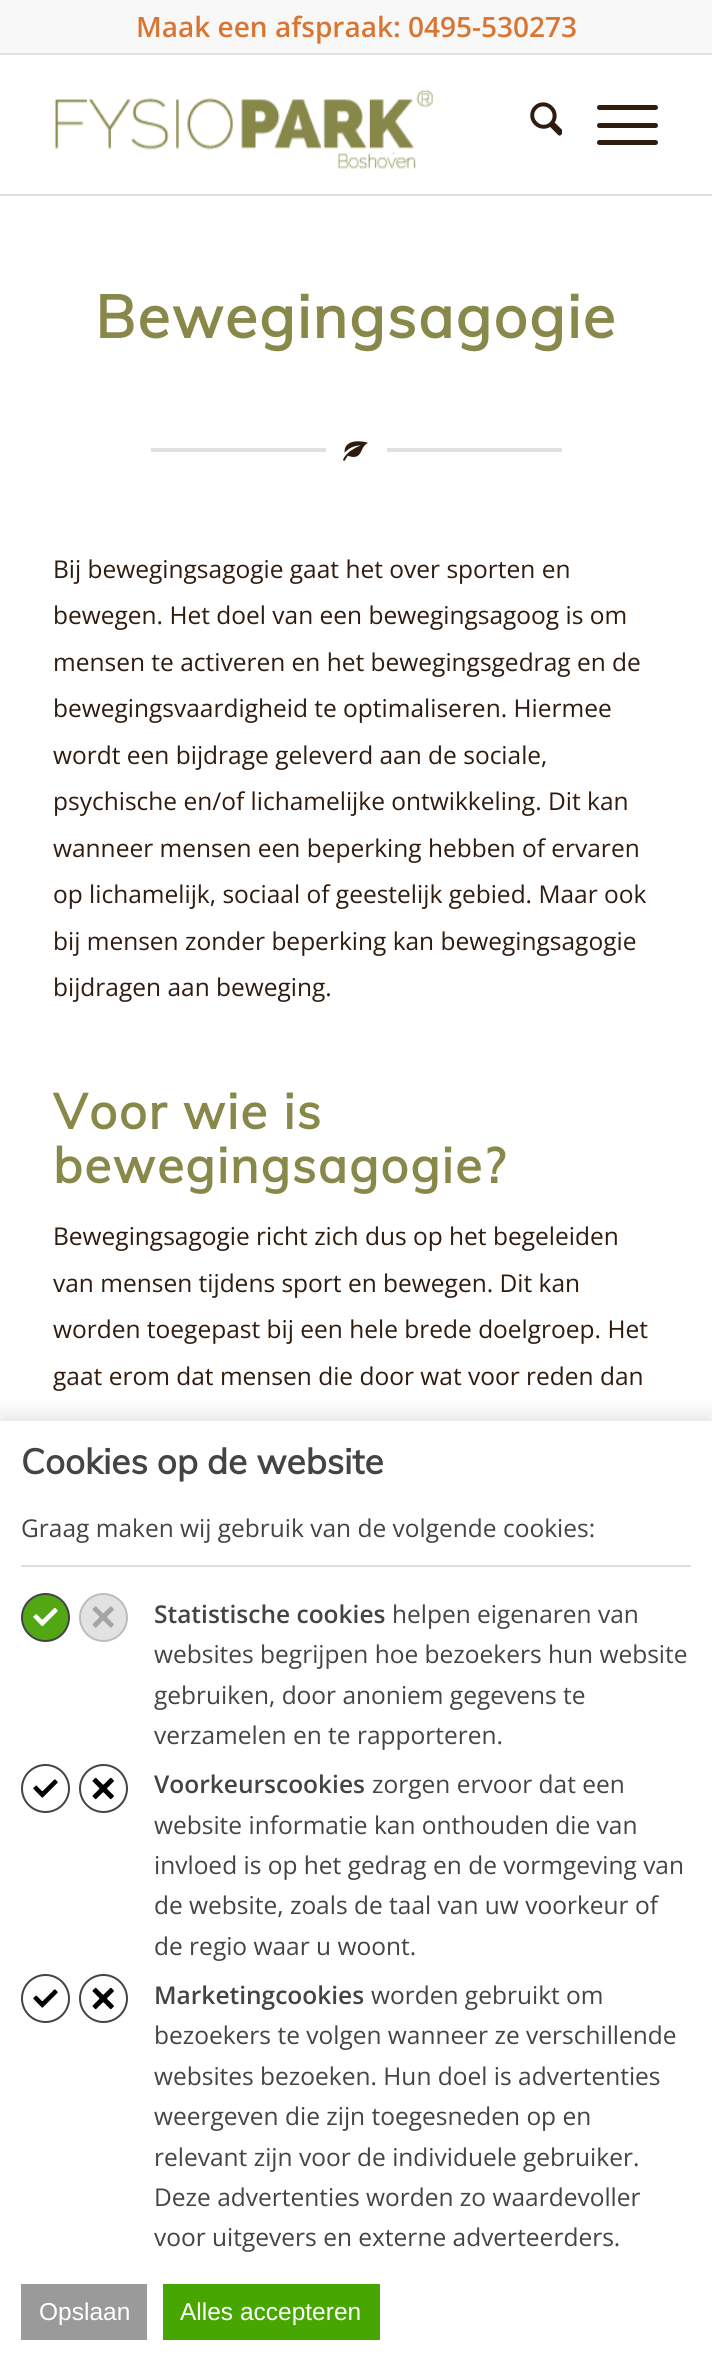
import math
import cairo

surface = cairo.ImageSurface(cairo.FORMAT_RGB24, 712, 2360)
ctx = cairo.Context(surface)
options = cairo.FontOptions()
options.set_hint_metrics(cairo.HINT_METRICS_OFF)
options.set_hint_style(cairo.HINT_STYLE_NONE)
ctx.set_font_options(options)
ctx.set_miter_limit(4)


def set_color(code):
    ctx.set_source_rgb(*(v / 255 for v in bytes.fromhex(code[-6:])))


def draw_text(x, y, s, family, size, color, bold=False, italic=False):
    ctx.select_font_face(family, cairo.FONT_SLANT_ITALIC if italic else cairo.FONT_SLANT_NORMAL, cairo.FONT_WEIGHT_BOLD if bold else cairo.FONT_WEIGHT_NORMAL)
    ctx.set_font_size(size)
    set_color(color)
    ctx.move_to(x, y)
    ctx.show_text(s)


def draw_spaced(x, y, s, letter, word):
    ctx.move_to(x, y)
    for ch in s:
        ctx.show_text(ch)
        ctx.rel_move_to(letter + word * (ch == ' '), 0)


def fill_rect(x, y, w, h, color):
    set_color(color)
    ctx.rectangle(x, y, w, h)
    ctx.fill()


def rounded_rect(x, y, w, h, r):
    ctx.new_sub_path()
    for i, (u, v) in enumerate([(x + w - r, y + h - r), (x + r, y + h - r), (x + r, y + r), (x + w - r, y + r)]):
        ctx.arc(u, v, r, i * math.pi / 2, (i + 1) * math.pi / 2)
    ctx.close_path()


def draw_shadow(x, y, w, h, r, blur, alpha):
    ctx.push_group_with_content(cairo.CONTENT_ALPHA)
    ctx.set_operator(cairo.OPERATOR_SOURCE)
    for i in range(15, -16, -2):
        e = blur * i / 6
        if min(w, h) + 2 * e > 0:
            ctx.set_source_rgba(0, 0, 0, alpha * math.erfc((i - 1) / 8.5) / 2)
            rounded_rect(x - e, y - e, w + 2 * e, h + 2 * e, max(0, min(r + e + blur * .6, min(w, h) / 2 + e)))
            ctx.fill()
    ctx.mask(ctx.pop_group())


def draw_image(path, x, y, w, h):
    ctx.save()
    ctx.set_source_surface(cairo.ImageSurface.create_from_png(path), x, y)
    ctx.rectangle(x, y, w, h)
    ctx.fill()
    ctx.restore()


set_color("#ffffff")
ctx.paint()
fill_rect(0, 0, 712, 53, "#f8f8f8")
fill_rect(0, 53, 712, 2, "#e1e1e1")
draw_text(136, 37, "Maak een afspraak: 0495-530273", "Open Sans SemiBold", 28, "#d97532")
fill_rect(0, 194, 712, 2, "#e1e1e1")
draw_image("assets/img1.png", 55, 90, 378, 79)
draw_image("assets/img2.png", 530, 102, 32, 34)
set_color("#301b0f")
rounded_rect(597, 123, 61, 5, 2.5)
ctx.fill()
rounded_rect(597, 105, 61, 5, 2.5)
ctx.fill()
rounded_rect(597, 140, 61, 5, 2.5)
ctx.fill()
ctx.select_font_face("Muli", cairo.FONT_SLANT_NORMAL, cairo.FONT_WEIGHT_BOLD)
ctx.set_font_size(59.5)
set_color("#88884b")
draw_spaced(95, 338, "Bewegingsagogie", 1.75, 0)
fill_rect(151, 448, 175, 4, "#e1e1e1")
draw_image("assets/img3.png", 343, 441, 25, 20)
fill_rect(387, 448, 175, 4, "#e1e1e1")
draw_text(53, 578, "Bij bewegingsagogie gaat het over sporten en", "Open Sans", 24.5, "#301b0f")
draw_text(53, 624, "bewegen. Het doel van een bewegingsagoog is om", "Open Sans", 24.5, "#301b0f")
draw_text(53, 671, "mensen te activeren en het bewegingsgedrag en de", "Open Sans", 24.5, "#301b0f")
draw_text(53, 717, "bewegingsvaardigheid te optimaliseren. Hiermee", "Open Sans", 24.5, "#301b0f")
draw_text(53, 764, "wordt een bijdrage geleverd aan de sociale,", "Open Sans", 24.5, "#301b0f")
draw_text(53, 810, "psychische en/of lichamelijke ontwikkeling. Dit kan", "Open Sans", 24.5, "#301b0f")
draw_text(53, 857, "wanneer mensen een beperking hebben of ervaren", "Open Sans", 24.5, "#301b0f")
draw_text(53, 903, "op lichamelijk, sociaal of geestelijk gebied. Maar ook", "Open Sans", 24.5, "#301b0f")
draw_text(53, 950, "bij mensen zonder beperking kan bewegingsagogie", "Open Sans", 24.5, "#301b0f")
draw_text(53, 996, "bijdragen aan beweging.", "Open Sans", 24.5, "#301b0f")
ctx.select_font_face("Muli", cairo.FONT_SLANT_NORMAL, cairo.FONT_WEIGHT_BOLD)
ctx.set_font_size(49)
set_color("#88884b")
draw_spaced(53, 1129, "Voor wie is", 1.75, 0)
draw_spaced(53, 1183, "bewegingsagogie?", 1.75, 0)
draw_text(53, 1245, "Bewegingsagogie richt zich dus op het begeleiden", "Open Sans", 24.5, "#301b0f")
draw_text(53, 1292, "van mensen tijdens sport en bewegen. Dit kan", "Open Sans", 24.5, "#301b0f")
draw_text(53, 1338, "worden toegepast bij een hele brede doelgroep. Het", "Open Sans", 24.5, "#301b0f")
draw_text(53, 1385, "gaat erom dat mensen die door wat voor reden dan", "Open Sans", 24.5, "#301b0f")
set_color("#000000")
draw_shadow(0, 1414, 712, 940, 0, 9, 0.1)
fill_rect(0, 1421, 712, 939, "#ffffff")
draw_text(21, 1474, "Cookies op de website", "Muli", 35, "#444444", bold=True)
fill_rect(21, 1565, 670, 2, "#dedede")
draw_text(21, 1537, "Graag maken wij gebruik van de volgende cookies:", "Open Sans", 24.5, "#444444")
set_color("#53a713")
ctx.new_path()
ctx.arc(45.5, 1617.5, 23.5, 0, 2 * math.pi)
ctx.fill_preserve()
set_color("#444444")
ctx.stroke()
draw_image("assets/img4.png", 33, 1607, 25, 20)
set_color("#e2e2e2")
ctx.arc(103.5, 1617.5, 23.5, 0, 2 * math.pi)
ctx.fill_preserve()
set_color("#bdbdbd")
ctx.stroke()
draw_image("assets/img5.png", 92, 1606, 22, 22)
draw_text(154, 1623, "Statistische cookies", "Open Sans SemiBold", 24.5, "#444444")
draw_text(392, 1623, "helpen eigenaren van", "Open Sans", 24.5, "#444444")
draw_text(154, 1663, "websites begrijpen hoe bezoekers hun website", "Open Sans", 24.5, "#444444")
draw_text(154, 1704, "gebruiken, door anoniem gegevens te", "Open Sans", 24.5, "#444444")
draw_text(154, 1744, "verzamelen en te rapporteren.", "Open Sans", 24.5, "#444444")
ctx.new_path()
ctx.arc(45.5, 1788.5, 23.5, 0, 2 * math.pi)
ctx.stroke()
draw_image("assets/img6.png", 33, 1779, 25, 19)
ctx.arc(103.5, 1788.5, 23.5, 0, 2 * math.pi)
ctx.stroke()
draw_image("assets/img7.png", 92, 1777, 22, 23)
draw_text(154, 1793, "Voorkeurscookies", "Open Sans SemiBold", 24.5, "#444444")
draw_text(372, 1793, "zorgen ervoor dat een", "Open Sans", 24.5, "#444444")
draw_text(154, 1834, "website informatie kan onthouden die van", "Open Sans", 24.5, "#444444")
draw_text(154, 1874, "invloed is op het gedrag en de vormgeving van", "Open Sans", 24.5, "#444444")
draw_text(154, 1914, "de website, zoals de taal van uw voorkeur of", "Open Sans", 24.5, "#444444")
draw_text(154, 1955, "de regio waar u woont.", "Open Sans", 24.5, "#444444")
ctx.new_path()
ctx.arc(45.5, 1998.5, 23.5, 0, 2 * math.pi)
ctx.stroke()
draw_image("assets/img6.png", 33, 1989, 25, 19)
ctx.arc(103.5, 1998.5, 23.5, 0, 2 * math.pi)
ctx.stroke()
draw_image("assets/img7.png", 92, 1987, 22, 23)
draw_text(154, 2004, "Marketingcookies", "Open Sans SemiBold", 24.5, "#444444")
draw_text(371, 2004, "worden gebruikt om", "Open Sans", 24.5, "#444444")
draw_text(154, 2044, "bezoekers te volgen wanneer ze verschillende", "Open Sans", 24.5, "#444444")
draw_text(154, 2085, "websites bezoeken. Hun doel is advertenties", "Open Sans", 24.5, "#444444")
draw_text(154, 2125, "weergeven die zijn toegesneden op en", "Open Sans", 24.5, "#444444")
draw_text(154, 2166, "relevant zijn voor de individuele gebruiker.", "Open Sans", 24.5, "#444444")
draw_text(154, 2206, "Deze advertenties worden zo waardevoller", "Open Sans", 24.5, "#444444")
draw_text(154, 2246, "voor uitgevers en externe adverteerders.", "Open Sans", 24.5, "#444444")
fill_rect(21, 2284, 126, 56, "#9a9a9a")
draw_text(39, 2320, "Opslaan", "Liberation Sans", 24.5, "#ffffff")
fill_rect(163, 2284, 217, 56, "#47a700")
draw_text(180, 2320, "Alles accepteren", "Liberation Sans", 24.5, "#ffffff")
surface.write_to_png("output.png")
